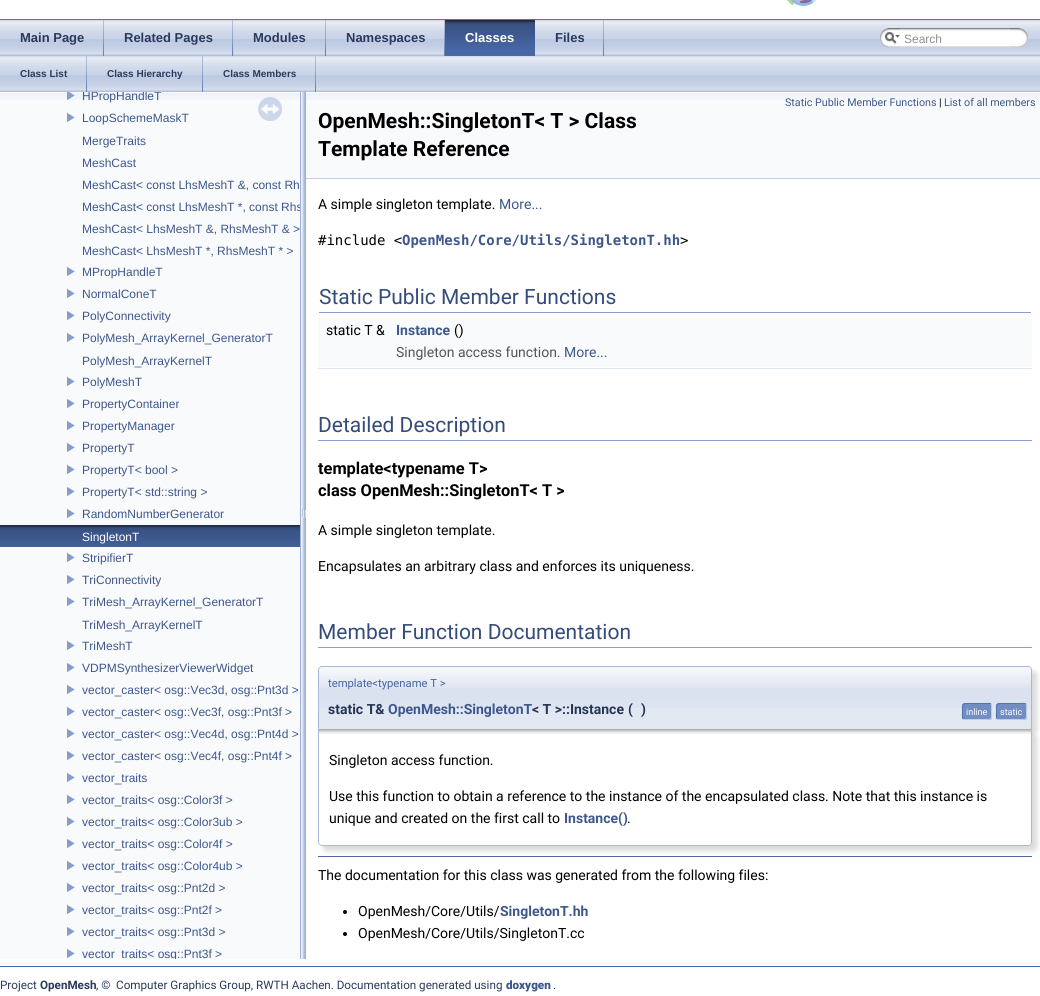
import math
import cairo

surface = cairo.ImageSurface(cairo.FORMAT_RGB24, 1040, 996)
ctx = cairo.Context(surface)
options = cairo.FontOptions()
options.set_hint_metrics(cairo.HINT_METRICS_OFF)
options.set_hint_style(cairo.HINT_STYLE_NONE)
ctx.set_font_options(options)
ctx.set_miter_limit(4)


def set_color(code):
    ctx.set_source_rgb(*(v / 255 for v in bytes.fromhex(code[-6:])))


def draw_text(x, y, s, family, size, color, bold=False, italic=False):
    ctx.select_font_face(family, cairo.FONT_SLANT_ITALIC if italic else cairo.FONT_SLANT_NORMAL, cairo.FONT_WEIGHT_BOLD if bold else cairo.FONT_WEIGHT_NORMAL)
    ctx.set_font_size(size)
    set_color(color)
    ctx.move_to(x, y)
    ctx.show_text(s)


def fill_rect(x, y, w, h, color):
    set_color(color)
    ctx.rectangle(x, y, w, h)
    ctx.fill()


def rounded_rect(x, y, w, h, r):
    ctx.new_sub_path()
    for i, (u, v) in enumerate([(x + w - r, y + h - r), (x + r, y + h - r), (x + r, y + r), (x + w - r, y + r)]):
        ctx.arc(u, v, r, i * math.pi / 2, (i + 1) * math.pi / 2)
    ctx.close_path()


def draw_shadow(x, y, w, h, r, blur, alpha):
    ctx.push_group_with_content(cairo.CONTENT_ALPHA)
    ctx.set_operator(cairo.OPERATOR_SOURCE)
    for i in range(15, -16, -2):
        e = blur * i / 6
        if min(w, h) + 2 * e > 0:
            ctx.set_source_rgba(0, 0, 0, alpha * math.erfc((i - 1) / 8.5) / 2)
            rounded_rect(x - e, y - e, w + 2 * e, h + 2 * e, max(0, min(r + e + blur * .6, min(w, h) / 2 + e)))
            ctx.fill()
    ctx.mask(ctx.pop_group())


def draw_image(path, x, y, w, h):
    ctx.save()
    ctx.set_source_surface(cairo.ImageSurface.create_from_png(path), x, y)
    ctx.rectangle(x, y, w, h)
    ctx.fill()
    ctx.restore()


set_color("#ffffff")
ctx.paint()
fill_rect(0, 19, 1040, 1, "#5373b4")
draw_image("assets/img1.png", 787, 0, 176, 7)
draw_image("assets/img2.png", 0, 20, 1040, 36)
draw_image("assets/img3.png", 103, 20, 1, 36)
draw_text(20, 42, "Main Page", "Liberation Sans", 13, "#283a5d", bold=True)
draw_image("assets/img3.png", 232, 20, 1, 36)
draw_text(124, 42, "Related Pages", "Liberation Sans", 13, "#283a5d", bold=True)
draw_image("assets/img3.png", 325, 20, 1, 36)
draw_text(253, 42, "Modules", "Liberation Sans", 13, "#283a5d", bold=True)
draw_image("assets/img3.png", 444, 20, 1, 36)
draw_text(346, 42, "Namespaces", "Liberation Sans", 13, "#283a5d", bold=True)
draw_image("assets/img4.png", 445, 20, 90, 36)
draw_text(465, 42, "Classes", "Liberation Sans", 13, "#ffffff", bold=True)
draw_image("assets/img3.png", 603, 20, 1, 36)
draw_text(555, 42, "Files", "Liberation Sans", 13, "#283a5d", bold=True)
draw_image("assets/img5.png", 880, 28, 20, 19)
draw_image("assets/img6.png", 885, 32, 15, 12)
draw_image("assets/img7.png", 900, 28, 110, 19)
draw_text(904, 43, "Search", "Liberation Sans", 12, "#909090")
draw_image("assets/img8.png", 1010, 28, 18, 19)
draw_image("assets/img2.png", 0, 56, 1040, 36)
draw_image("assets/img3.png", 86, 56, 1, 36)
draw_text(20, 77, "Class List", "Liberation Sans", 10, "#283a5d", bold=True)
draw_image("assets/img3.png", 202, 56, 1, 36)
draw_text(107, 77, "Class Hierarchy", "Liberation Sans", 10, "#283a5d", bold=True)
draw_image("assets/img3.png", 315, 56, 1, 36)
draw_text(223, 77, "Class Members", "Liberation Sans", 10, "#283a5d", bold=True)
fill_rect(0, 100, 300, 859, "#f9fafc")
draw_image("assets/img9.png", 0, 92, 300, 8)
draw_image("assets/img10.png", 67, 92, 8, 8)
ctx.save()
ctx.rectangle(0, 92, 300, 867)
ctx.clip()
draw_text(82, 100, "HPropHandleT", "Liberation Sans", 12, "#3d578c")
ctx.restore()
draw_image("assets/img11.png", 67, 113, 8, 9)
draw_text(82, 122, "LoopSchemeMaskT", "Liberation Sans", 12, "#3d578c")
draw_text(82, 145, "MergeTraits", "Liberation Sans", 12, "#3d578c")
draw_text(82, 167, "MeshCast", "Liberation Sans", 12, "#3d578c")
draw_text(82, 189, "MeshCast< const LhsMeshT &, const Rh", "Liberation Sans", 12, "#3d578c")
draw_text(82, 211, "MeshCast< const LhsMeshT *, const Rhs", "Liberation Sans", 12, "#3d578c")
draw_text(82, 233, "MeshCast< LhsMeshT &, RhsMeshT & >", "Liberation Sans", 12, "#3d578c")
draw_text(82, 255, "MeshCast< LhsMeshT *, RhsMeshT * >", "Liberation Sans", 12, "#3d578c")
draw_image("assets/img11.png", 67, 267, 8, 9)
draw_text(82, 276, "MPropHandleT", "Liberation Sans", 12, "#3d578c")
draw_image("assets/img11.png", 67, 289, 8, 9)
draw_text(82, 298, "NormalConeT", "Liberation Sans", 12, "#3d578c")
draw_image("assets/img11.png", 67, 311, 8, 9)
draw_text(82, 320, "PolyConnectivity", "Liberation Sans", 12, "#3d578c")
draw_image("assets/img11.png", 67, 333, 8, 9)
draw_text(82, 342, "PolyMesh_ArrayKernel_GeneratorT", "Liberation Sans", 12, "#3d578c")
draw_text(82, 365, "PolyMesh_ArrayKernelT", "Liberation Sans", 12, "#3d578c")
draw_image("assets/img11.png", 67, 377, 8, 9)
draw_text(82, 386, "PolyMeshT", "Liberation Sans", 12, "#3d578c")
draw_image("assets/img11.png", 67, 399, 8, 9)
draw_text(82, 408, "PropertyContainer", "Liberation Sans", 12, "#3d578c")
draw_image("assets/img11.png", 67, 421, 8, 9)
draw_text(82, 430, "PropertyManager", "Liberation Sans", 12, "#3d578c")
draw_image("assets/img11.png", 67, 443, 8, 9)
draw_text(82, 452, "PropertyT", "Liberation Sans", 12, "#3d578c")
draw_image("assets/img11.png", 67, 465, 8, 9)
draw_text(82, 474, "PropertyT< bool >", "Liberation Sans", 12, "#3d578c")
draw_image("assets/img11.png", 67, 487, 8, 9)
draw_text(82, 496, "PropertyT< std::string >", "Liberation Sans", 12, "#3d578c")
draw_image("assets/img11.png", 67, 509, 8, 9)
draw_text(82, 518, "RandomNumberGenerator", "Liberation Sans", 12, "#3d578c")
draw_image("assets/img12.png", 0, 525, 300, 22)
draw_text(82, 541, "SingletonT", "Liberation Sans", 12, "#ffffff")
draw_image("assets/img11.png", 67, 553, 8, 9)
draw_text(82, 562, "StripifierT", "Liberation Sans", 12, "#3d578c")
draw_image("assets/img11.png", 67, 575, 8, 9)
draw_text(82, 584, "TriConnectivity", "Liberation Sans", 12, "#3d578c")
draw_image("assets/img11.png", 67, 597, 8, 9)
draw_text(82, 606, "TriMesh_ArrayKernel_GeneratorT", "Liberation Sans", 12, "#3d578c")
draw_text(82, 629, "TriMesh_ArrayKernelT", "Liberation Sans", 12, "#3d578c")
draw_image("assets/img11.png", 67, 641, 8, 9)
draw_text(82, 650, "TriMeshT", "Liberation Sans", 12, "#3d578c")
draw_image("assets/img11.png", 67, 663, 8, 9)
draw_text(82, 672, "VDPMSynthesizerViewerWidget", "Liberation Sans", 12, "#3d578c")
draw_image("assets/img11.png", 67, 685, 8, 9)
draw_text(82, 694, "vector_caster< osg::Vec3d, osg::Pnt3d >", "Liberation Sans", 12, "#3d578c")
draw_image("assets/img11.png", 67, 707, 8, 9)
draw_text(82, 716, "vector_caster< osg::Vec3f, osg::Pnt3f >", "Liberation Sans", 12, "#3d578c")
draw_image("assets/img11.png", 67, 729, 8, 9)
draw_text(82, 738, "vector_caster< osg::Vec4d, osg::Pnt4d >", "Liberation Sans", 12, "#3d578c")
draw_image("assets/img11.png", 67, 751, 8, 9)
draw_text(82, 760, "vector_caster< osg::Vec4f, osg::Pnt4f >", "Liberation Sans", 12, "#3d578c")
draw_image("assets/img11.png", 67, 773, 8, 9)
draw_text(82, 782, "vector_traits", "Liberation Sans", 12, "#3d578c")
draw_image("assets/img11.png", 67, 795, 8, 9)
draw_text(82, 804, "vector_traits< osg::Color3f >", "Liberation Sans", 12, "#3d578c")
draw_image("assets/img11.png", 67, 817, 8, 9)
draw_text(82, 826, "vector_traits< osg::Color3ub >", "Liberation Sans", 12, "#3d578c")
draw_image("assets/img11.png", 67, 839, 8, 9)
draw_text(82, 848, "vector_traits< osg::Color4f >", "Liberation Sans", 12, "#3d578c")
draw_image("assets/img11.png", 67, 861, 8, 9)
draw_text(82, 870, "vector_traits< osg::Color4ub >", "Liberation Sans", 12, "#3d578c")
draw_image("assets/img11.png", 67, 883, 8, 9)
draw_text(82, 892, "vector_traits< osg::Pnt2d >", "Liberation Sans", 12, "#3d578c")
draw_image("assets/img11.png", 67, 905, 8, 9)
draw_text(82, 914, "vector_traits< osg::Pnt2f >", "Liberation Sans", 12, "#3d578c")
draw_image("assets/img11.png", 67, 927, 8, 9)
draw_text(82, 936, "vector_traits< osg::Pnt3d >", "Liberation Sans", 12, "#3d578c")
draw_image("assets/img11.png", 67, 949, 8, 9)
ctx.save()
ctx.rectangle(0, 92, 300, 867)
ctx.clip()
draw_text(82, 958, "vector_traits< osg::Pnt3f >", "Liberation Sans", 12, "#3d578c")
ctx.restore()
draw_image("assets/img13.png", 258, 97, 24, 24)
draw_image("assets/img14.png", 300, 92, 6, 867)
fill_rect(306, 100, 734, 78, "#f9fafc")
draw_image("assets/img15.png", 306, 92, 734, 8)
fill_rect(306, 178, 734, 1, "#c4cfe5")
draw_text(785, 106, "Static Public Member Functions", "Roboto", 10.7, "#3d578c")
draw_text(939, 106, "|", "Roboto", 10.7, "#000000")
draw_text(944, 106, "List of all members", "Roboto", 10.7, "#3d578c")
draw_text(318, 128, "OpenMesh::SingletonT< T > Class", "Roboto", 21, "#000000", bold=True)
draw_text(318, 156, "Template Reference", "Roboto", 21, "#000000", bold=True)
draw_text(318, 209, "A simple singleton template.", "Roboto", 14, "#000000")
draw_text(499, 209, "More...", "Roboto", 14, "#3d578c")
draw_text(318, 245, "#include <", "DejaVu Sans Mono", 14, "#000000")
draw_text(402, 245, "OpenMesh/Core/Utils/SingletonT.hh", "DejaVu Sans Mono", 14, "#3d578c", bold=True)
draw_text(680, 245, ">", "DejaVu Sans Mono", 14, "#000000")
fill_rect(319, 312, 712, 1, "#879ecb")
draw_text(319, 304, "Static Public Member Functions", "Roboto", 21, "#354c7b")
fill_rect(318, 318, 714, 23, "#f9fafc")
draw_text(326, 335, "static T &", "Roboto", 14, "#000000")
draw_text(396, 335, "Instance", "Roboto", 14, "#3d578c", bold=True)
draw_text(454, 335, "()", "Roboto", 14, "#000000")
fill_rect(318, 341, 714, 26, "#f9fafc")
draw_text(396, 357, "Singleton access function.", "Roboto", 14, "#555555")
draw_text(564, 357, "More...", "Roboto", 14, "#3d578c")
fill_rect(318, 368, 714, 1, "#dee4f0")
fill_rect(318, 440, 714, 1, "#879ecb")
draw_text(318, 432, "Detailed Description", "Roboto", 21, "#354c7b")
draw_text(318, 474, "template<typename T>", "Roboto", 16.4, "#000000", bold=True)
draw_text(318, 496, "class OpenMesh::SingletonT< T >", "Roboto", 16.4, "#000000", bold=True)
draw_text(318, 535, "A simple singleton template.", "Roboto", 14, "#000000")
draw_text(318, 571, "Encapsulates an arbitrary class and enforces its uniqueness.", "Roboto", 14, "#000000")
fill_rect(318, 647, 714, 1, "#879ecb")
draw_text(318, 639, "Member Function Documentation", "Roboto", 21, "#354c7b")
set_color("#000000")
draw_shadow(323, 671, 714, 63, 4, 2.5, 0.15)
set_color("#e2e8f2")
ctx.new_path()
ctx.move_to(322, 666)
ctx.line_to(1028, 666)
ctx.curve_to(1030, 666, 1032, 668, 1032, 670)
ctx.line_to(1032, 729)
ctx.line_to(318, 729)
ctx.line_to(318, 670)
ctx.curve_to(318, 668, 320, 666, 322, 666)
ctx.close_path()
ctx.fill()
draw_image("assets/img16.png", 318, 667, 714, 41)
set_color("#a8b8d9")
ctx.set_fill_rule(cairo.FILL_RULE_EVEN_ODD)
ctx.new_path()
ctx.move_to(322, 666)
ctx.line_to(1028, 666)
ctx.curve_to(1030, 666, 1032, 668, 1032, 670)
ctx.line_to(1032, 729)
ctx.line_to(318, 729)
ctx.line_to(318, 670)
ctx.curve_to(318, 668, 320, 666, 322, 666)
ctx.close_path()
ctx.move_to(322, 667)
ctx.line_to(1028, 667)
ctx.curve_to(1030, 667, 1031, 668, 1031, 670)
ctx.line_to(1031, 729)
ctx.line_to(319, 729)
ctx.line_to(319, 670)
ctx.curve_to(319, 668, 320, 667, 322, 667)
ctx.close_path()
ctx.fill()
draw_text(328, 687, "template<typename T >", "Roboto", 11.25, "#4665a2")
draw_text(328, 714, "static T&", "Roboto", 14, "#253555", bold=True)
draw_text(388, 714, "OpenMesh::SingletonT", "Roboto", 14, "#3d578c", bold=True)
draw_text(532, 714, "< T >::Instance", "Roboto", 14, "#253555", bold=True)
draw_text(628, 714, "(", "Roboto", 14, "#253555", bold=True)
draw_text(641, 714, ")", "Roboto", 14, "#253555", bold=True)
set_color("#728dc1")
rounded_rect(962, 703, 30, 17, 3)
ctx.fill()
ctx.new_path()
ctx.move_to(991, 704)
ctx.curve_to(992, 705.5, 991.5, 710, 991.5, 711.5)
ctx.curve_to(991.5, 719, 992.5, 719.5, 985, 719.5)
ctx.line_to(969, 719.5)
ctx.curve_to(967.5, 719.5, 964.5, 720, 963, 719)
set_color("#c4cfe5")
ctx.set_line_width(1)
ctx.stroke()
ctx.new_path()
ctx.move_to(963, 719)
ctx.curve_to(962, 717.5, 962.5, 713, 962.5, 711.5)
ctx.curve_to(962.5, 704, 961.5, 703.5, 969, 703.5)
ctx.line_to(985, 703.5)
ctx.curve_to(986.5, 703.5, 989.5, 703, 991, 704)
set_color("#5373b4")
ctx.stroke()
draw_text(966, 715, "inline", "Roboto", 9, "#ffffff")
set_color("#728dc1")
rounded_rect(996, 703, 31, 17, 3)
ctx.fill()
ctx.new_path()
ctx.move_to(1026, 704)
ctx.curve_to(1027, 705.5, 1026.5, 710, 1026.5, 711.5)
ctx.curve_to(1026.5, 719, 1027.5, 719.5, 1020, 719.5)
ctx.line_to(1003, 719.5)
ctx.curve_to(1002, 719.5, 998.5, 720, 997, 719)
set_color("#c4cfe5")
ctx.stroke()
ctx.new_path()
ctx.move_to(997, 719)
ctx.curve_to(996, 717.5, 996.5, 713, 996.5, 711.5)
ctx.curve_to(996.5, 704, 995.5, 703.5, 1003, 703.5)
ctx.line_to(1020, 703.5)
ctx.curve_to(1021, 703.5, 1024.5, 703, 1026, 704)
set_color("#5373b4")
ctx.stroke()
draw_text(1000, 715, "static", "Roboto", 9, "#ffffff")
set_color("#000000")
draw_shadow(323, 734, 714, 117, 4, 2.5, 0.15)
set_color("#ffffff")
ctx.new_path()
ctx.move_to(318, 729)
ctx.line_to(1032, 729)
ctx.line_to(1032, 842)
ctx.curve_to(1032, 844, 1030, 846, 1028, 846)
ctx.line_to(322, 846)
ctx.curve_to(320, 846, 318, 844, 318, 842)
ctx.close_path()
ctx.fill()
draw_image("assets/img17.png", 319, 729, 712, 5)
set_color("#a8b8d9")
ctx.new_path()
ctx.move_to(318, 729)
ctx.line_to(1032, 729)
ctx.line_to(1032, 842)
ctx.curve_to(1032, 844, 1030, 846, 1028, 846)
ctx.line_to(322, 846)
ctx.curve_to(320, 846, 318, 844, 318, 842)
ctx.close_path()
ctx.move_to(319, 729)
ctx.line_to(1031, 729)
ctx.line_to(1031, 842)
ctx.curve_to(1031, 844, 1030, 845, 1028, 845)
ctx.line_to(322, 845)
ctx.curve_to(320, 845, 319, 844, 319, 842)
ctx.close_path()
ctx.fill()
draw_text(329, 765, "Singleton access function.", "Roboto", 14, "#000000")
draw_text(329, 801, "Use this function to obtain a reference to the instance of the encapsulated class. Note that this instance is", "Roboto", 14, "#000000")
draw_text(329, 823, "unique and created on the first call to", "Roboto", 14, "#000000")
draw_text(564, 823, "Instance()", "Roboto", 14, "#3d578c", bold=True)
draw_text(627, 823, ".", "Roboto", 14, "#000000")
fill_rect(318, 856, 714, 1, "#4a6aaa")
draw_text(318, 880, "The documentation for this class was generated from the following files:", "Roboto", 14, "#000000")
ctx.new_path()
ctx.arc(345, 912, 2, 0, 2 * math.pi)
ctx.fill()
draw_text(358, 916, "OpenMesh/Core/Utils/", "Roboto", 14, "#000000")
draw_text(500, 916, "SingletonT.hh", "Roboto", 14, "#3d578c", bold=True)
set_color("#000000")
ctx.new_path()
ctx.arc(345, 934, 2, 0, 2 * math.pi)
ctx.fill()
draw_text(358, 938, "OpenMesh/Core/Utils/SingletonT.cc", "Roboto", 14, "#000000")
fill_rect(0, 966, 1040, 1, "#4a6aaa")
draw_text(0, 989, "Project", "Roboto", 11.65, "#283a5d")
draw_text(40, 989, "OpenMesh", "Roboto", 11.65, "#283a5d", bold=True)
draw_text(96, 989, ", ©  Computer Graphics Group, RWTH Aachen. Documentation generated using", "Roboto", 11.65, "#283a5d")
draw_text(506, 989, "doxygen", "Roboto Black", 11.65, "#3d578c")
draw_text(553, 989, ".", "Roboto", 11.65, "#283a5d")
surface.write_to_png("output.png")
